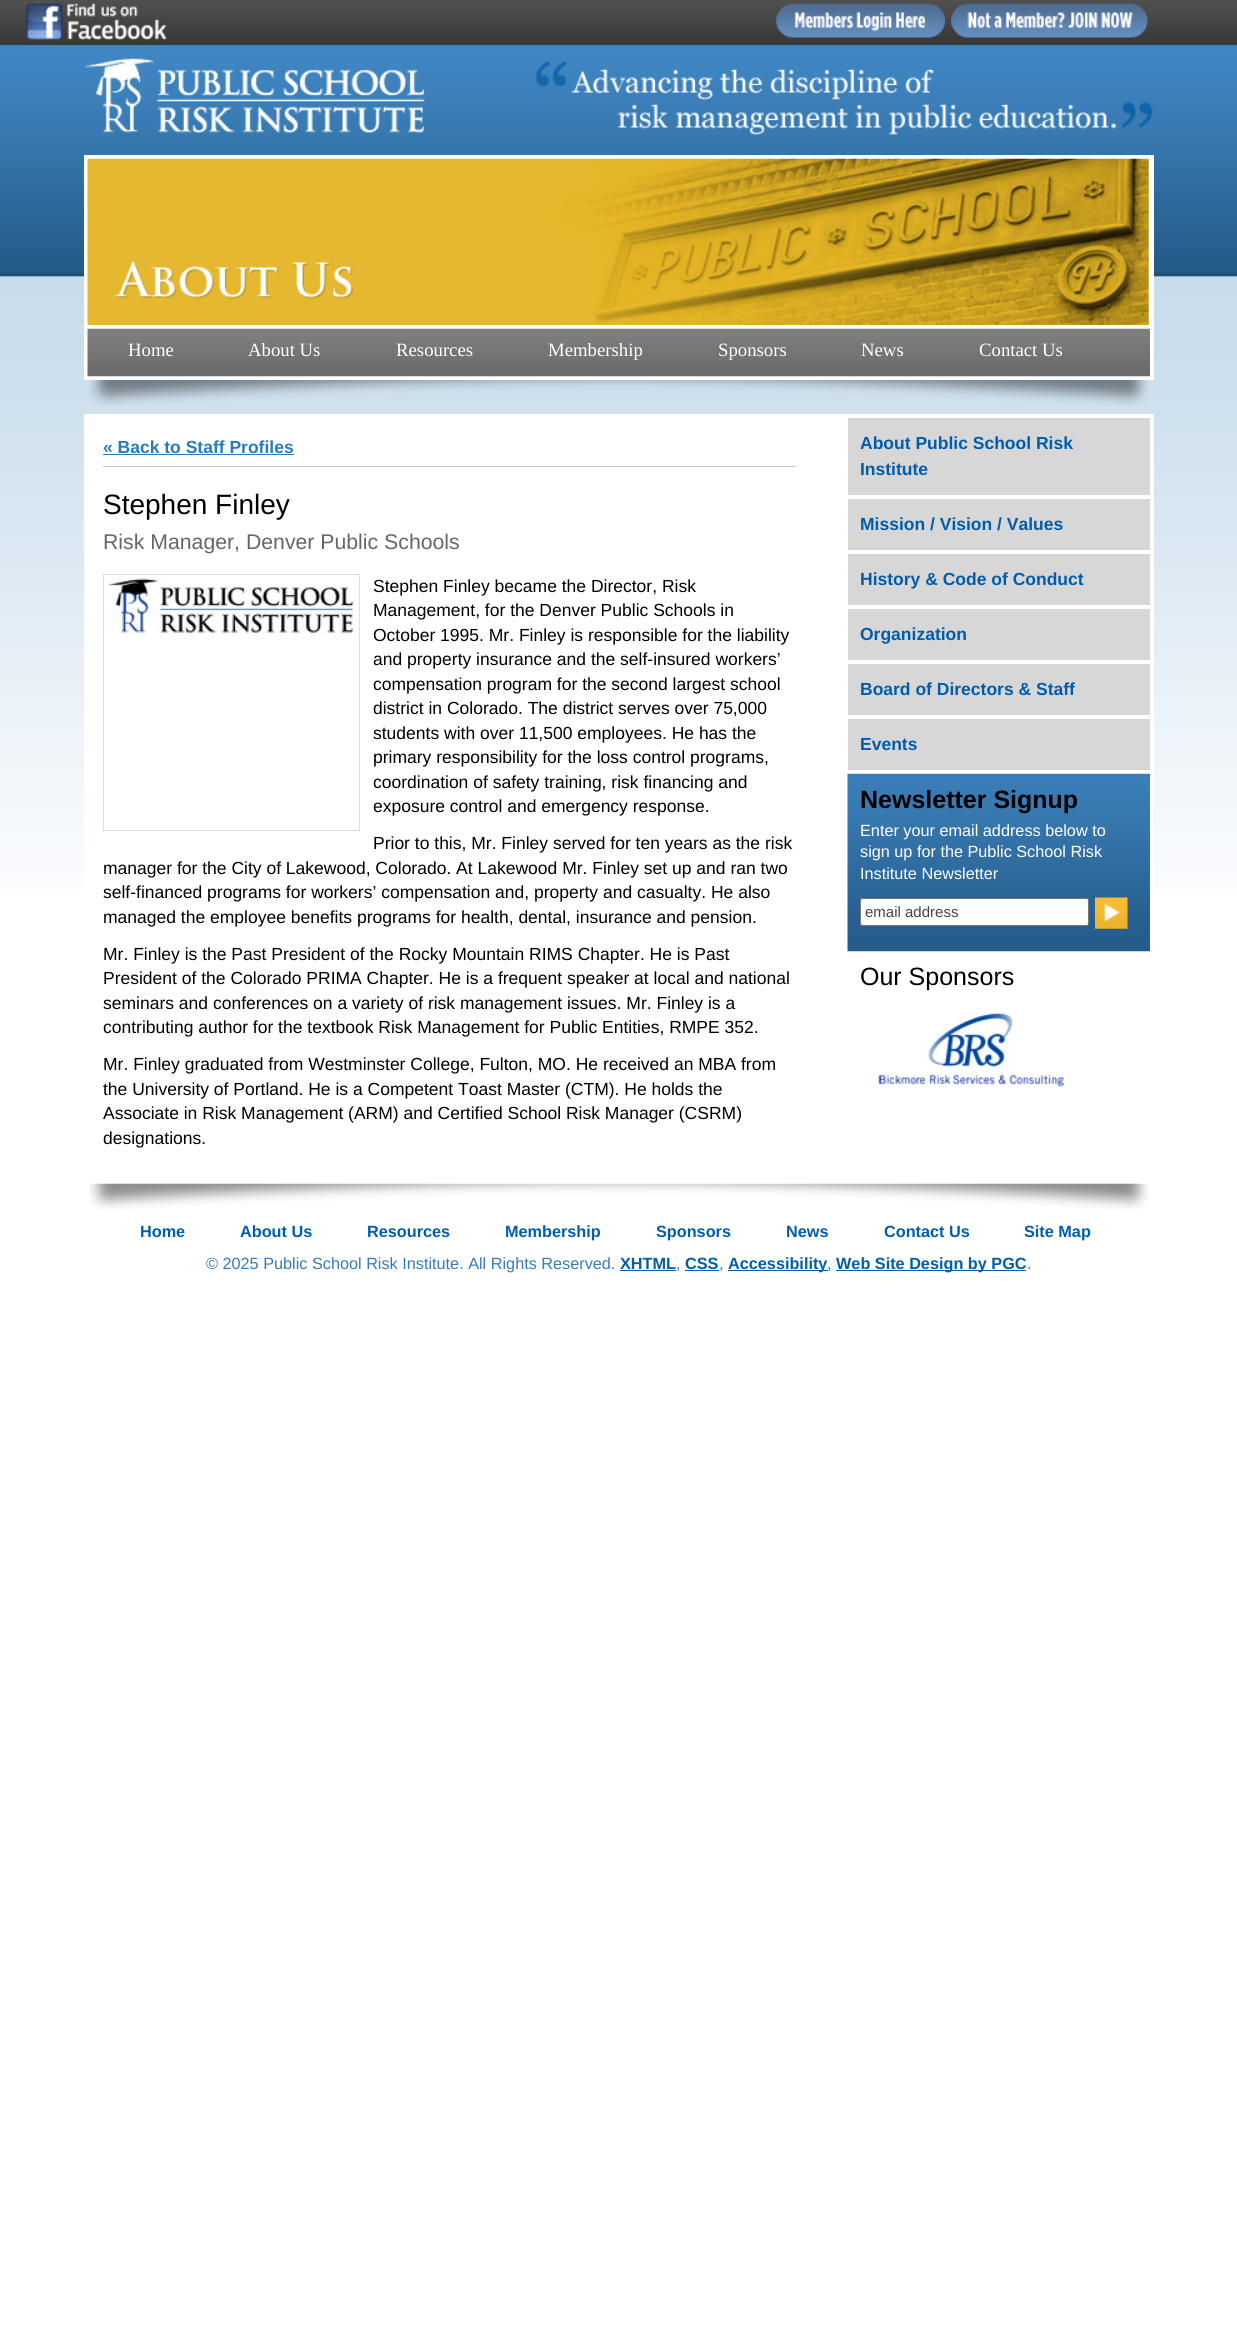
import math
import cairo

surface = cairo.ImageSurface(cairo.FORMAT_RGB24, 1237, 2327)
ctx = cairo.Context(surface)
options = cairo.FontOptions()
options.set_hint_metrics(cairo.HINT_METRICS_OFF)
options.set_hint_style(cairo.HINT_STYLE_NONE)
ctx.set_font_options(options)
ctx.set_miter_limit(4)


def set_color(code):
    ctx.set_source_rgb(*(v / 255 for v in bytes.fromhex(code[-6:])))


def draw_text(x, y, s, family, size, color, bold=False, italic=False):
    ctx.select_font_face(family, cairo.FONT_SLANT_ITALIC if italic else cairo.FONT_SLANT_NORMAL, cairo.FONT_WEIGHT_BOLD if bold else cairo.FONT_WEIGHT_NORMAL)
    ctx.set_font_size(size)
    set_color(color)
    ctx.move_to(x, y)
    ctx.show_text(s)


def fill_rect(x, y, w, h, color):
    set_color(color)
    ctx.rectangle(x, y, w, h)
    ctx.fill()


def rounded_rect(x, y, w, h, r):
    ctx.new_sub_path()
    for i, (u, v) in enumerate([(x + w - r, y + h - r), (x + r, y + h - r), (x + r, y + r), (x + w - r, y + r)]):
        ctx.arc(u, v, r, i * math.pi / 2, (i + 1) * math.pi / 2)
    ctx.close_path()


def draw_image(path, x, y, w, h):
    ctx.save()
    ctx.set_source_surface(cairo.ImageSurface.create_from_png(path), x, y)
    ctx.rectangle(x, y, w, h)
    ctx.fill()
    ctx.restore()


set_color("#ffffff")
ctx.paint()
draw_image("assets/img1.png", 0, 0, 1237, 889)
draw_image("assets/img2.png", 25, 3, 143, 42)
draw_image("assets/img3.png", 776, 3, 169, 35)
draw_image("assets/img4.png", 951, 3, 197, 35)
draw_image("assets/img5.png", 85, 58, 341, 75)
draw_image("assets/img6.png", 536, 61, 617, 74)
fill_rect(84, 155, 1070, 225, "#ffffff")
draw_image("assets/img7.png", 87, 158, 1062, 167)
draw_image("assets/img8.png", 87, 328, 1063, 49)
draw_text(128, 356, "Home", "Liberation Serif", 18.75, "#ffffff")
draw_text(248, 356, "About Us", "Liberation Serif", 18.75, "#ffffff")
draw_text(396, 356, "Resources", "Liberation Serif", 18.75, "#ffffff")
draw_text(548, 356, "Membership", "Liberation Serif", 18.75, "#ffffff")
draw_text(718, 356, "Sponsors", "Liberation Serif", 18.75, "#ffffff")
draw_text(861, 356, "News", "Liberation Serif", 18.75, "#ffffff")
draw_text(979, 356, "Contact Us", "Liberation Serif", 18.75, "#ffffff")
draw_image("assets/img9.png", 89, 380, 1060, 26)
fill_rect(84, 414, 1070, 475, "#ffffff")
fill_rect(103, 466, 693, 1, "#cccccc")
draw_text(103, 453, "« Back to Staff Profiles", "Liberation Sans", 17.5, "#257cc3", bold=True)
fill_rect(103, 454, 191, 1, "#257cc3")
draw_text(103, 514, "Stephen Finley", "Liberation Sans", 28, "#000000")
draw_text(103, 549, "Risk Manager, Denver Public Schools", "Liberation Sans", 21.25, "#666666")
ctx.rectangle(103.5, 574.5, 256, 256)
set_color("#dedede")
ctx.set_line_width(1)
ctx.stroke()
draw_image("assets/img10.png", 107, 578, 249, 56)
draw_text(373, 592, "Stephen Finley became the Director, Risk", "Liberation Sans", 17.5, "#000000")
draw_text(373, 616, "Management, for the Denver Public Schools in", "Liberation Sans", 17.5, "#000000")
draw_text(373, 641, "October 1995. Mr. Finley is responsible for the liability", "Liberation Sans", 17.5, "#000000")
draw_text(373, 665, "and property insurance and the self-insured workers’", "Liberation Sans", 17.5, "#000000")
draw_text(373, 690, "compensation program for the second largest school", "Liberation Sans", 17.5, "#000000")
draw_text(373, 714, "district in Colorado. The district serves over 75,000", "Liberation Sans", 17.5, "#000000")
draw_text(373, 739, "students with over 11,500 employees. He has the", "Liberation Sans", 17.5, "#000000")
draw_text(373, 763, "primary responsibility for the loss control programs,", "Liberation Sans", 17.5, "#000000")
draw_text(373, 788, "coordination of safety training, risk financing and", "Liberation Sans", 17.5, "#000000")
draw_text(373, 812, "exposure control and emergency response.", "Liberation Sans", 17.5, "#000000")
draw_text(373, 849, "Prior to this, Mr. Finley served for ten years as the risk", "Liberation Sans", 17.5, "#000000")
draw_text(103, 874, "manager for the City of Lakewood, Colorado. At Lakewood Mr. Finley set up and ran two", "Liberation Sans", 17.5, "#000000")
draw_text(103, 898, "self-financed programs for workers’ compensation and, property and casualty. He also", "Liberation Sans", 17.5, "#000000")
draw_text(103, 923, "managed the employee benefits programs for health, dental, insurance and pension.", "Liberation Sans", 17.5, "#000000")
draw_text(103, 960, "Mr. Finley is the Past President of the Rocky Mountain RIMS Chapter. He is Past", "Liberation Sans", 17.5, "#000000")
draw_text(103, 984, "President of the Colorado PRIMA Chapter. He is a frequent speaker at local and national", "Liberation Sans", 17.5, "#000000")
draw_text(103, 1009, "seminars and conferences on a variety of risk management issues. Mr. Finley is a", "Liberation Sans", 17.5, "#000000")
draw_text(103, 1033, "contributing author for the textbook Risk Management for Public Entities, RMPE 352.", "Liberation Sans", 17.5, "#000000")
draw_text(103, 1070, "Mr. Finley graduated from Westminster College, Fulton, MO. He received an MBA from", "Liberation Sans", 17.5, "#000000")
draw_text(103, 1095, "the University of Portland. He is a Competent Toast Master (CTM). He holds the", "Liberation Sans", 17.5, "#000000")
draw_text(103, 1119, "Associate in Risk Management (ARM) and Certified School Risk Manager (CSRM)", "Liberation Sans", 17.5, "#000000")
draw_text(103, 1144, "designations.", "Liberation Sans", 17.5, "#000000")
fill_rect(848, 418, 302, 77, "#d7d7d7")
draw_text(860, 449, "About Public School Risk", "Liberation Sans", 17.5, "#005dab", bold=True)
draw_text(860, 475, "Institute", "Liberation Sans", 17.5, "#005dab", bold=True)
fill_rect(848, 499, 302, 51, "#d7d7d7")
draw_text(860, 530, "Mission / Vision / Values", "Liberation Sans", 17.5, "#005dab", bold=True)
fill_rect(848, 554, 302, 51, "#d7d7d7")
draw_text(860, 585, "History & Code of Conduct", "Liberation Sans", 17.5, "#005dab", bold=True)
fill_rect(848, 609, 302, 51, "#d7d7d7")
draw_text(860, 640, "Organization", "Liberation Sans", 17.5, "#005dab", bold=True)
fill_rect(848, 664, 302, 51, "#d7d7d7")
draw_text(860, 695, "Board of Directors & Staff", "Liberation Sans", 17.5, "#005dab", bold=True)
fill_rect(848, 719, 302, 51, "#d7d7d7")
draw_text(860, 750, "Events", "Liberation Sans", 17.5, "#005dab", bold=True)
draw_image("assets/img11.png", 847, 773, 303, 179)
draw_text(860, 808, "Newsletter Signup", "Liberation Sans", 25, "#000000", bold=True)
draw_text(860, 836, "Enter your email address below to", "Liberation Sans", 16.25, "#ffffff")
draw_text(860, 857, "sign up for the Public School Risk", "Liberation Sans", 16.25, "#ffffff")
draw_text(860, 879, "Institute Newsletter", "Liberation Sans", 16.25, "#ffffff")
rounded_rect(860.5, 898.5, 228, 27, 2)
ctx.fill_preserve()
set_color("#767676")
ctx.stroke()
draw_text(865, 917, "email address", "Liberation Sans", 15, "#444444")
draw_image("assets/img12.png", 1095, 897, 33, 32)
draw_text(860, 985, "Our Sponsors", "Liberation Sans", 25, "#000000")
draw_image("assets/img13.png", 878, 1013, 186, 74)
draw_image("assets/img14.png", 89, 1183, 1060, 26)
draw_text(140, 1237, "Home", "Liberation Sans", 16.25, "#005dab", bold=True)
draw_text(240, 1237, "About Us", "Liberation Sans", 16.25, "#005dab", bold=True)
draw_text(367, 1237, "Resources", "Liberation Sans", 16.25, "#005dab", bold=True)
draw_text(505, 1237, "Membership", "Liberation Sans", 16.25, "#005dab", bold=True)
draw_text(656, 1237, "Sponsors", "Liberation Sans", 16.25, "#005dab", bold=True)
draw_text(786, 1237, "News", "Liberation Sans", 16.25, "#005dab", bold=True)
draw_text(884, 1237, "Contact Us", "Liberation Sans", 16.25, "#005dab", bold=True)
draw_text(1024, 1237, "Site Map", "Liberation Sans", 16.25, "#005dab", bold=True)
draw_text(206, 1269, "© 2025 Public School Risk Institute. All Rights Reserved.", "Liberation Sans", 16.25, "#367bb6")
draw_text(620, 1269, "XHTML", "Liberation Sans", 16.25, "#005dab", bold=True)
fill_rect(620, 1270, 56, 1, "#005dab")
draw_text(676, 1269, ",", "Liberation Sans", 16.25, "#367bb6")
draw_text(685, 1269, "CSS", "Liberation Sans", 16.25, "#005dab", bold=True)
fill_rect(685, 1270, 34, 1, "#005dab")
draw_text(719, 1269, ",", "Liberation Sans", 16.25, "#367bb6")
fill_rect(728, 1270, 100, 1, "#005dab")
draw_text(728, 1269, "Accessibility", "Liberation Sans", 16.25, "#005dab", bold=True)
draw_text(827, 1269, ",", "Liberation Sans", 16.25, "#367bb6")
fill_rect(836, 1270, 190, 1, "#005dab")
draw_text(836, 1269, "Web Site Design by PGC", "Liberation Sans", 16.25, "#005dab", bold=True)
draw_text(1027, 1269, ".", "Liberation Sans", 16.25, "#367bb6")
surface.write_to_png("output.png")
